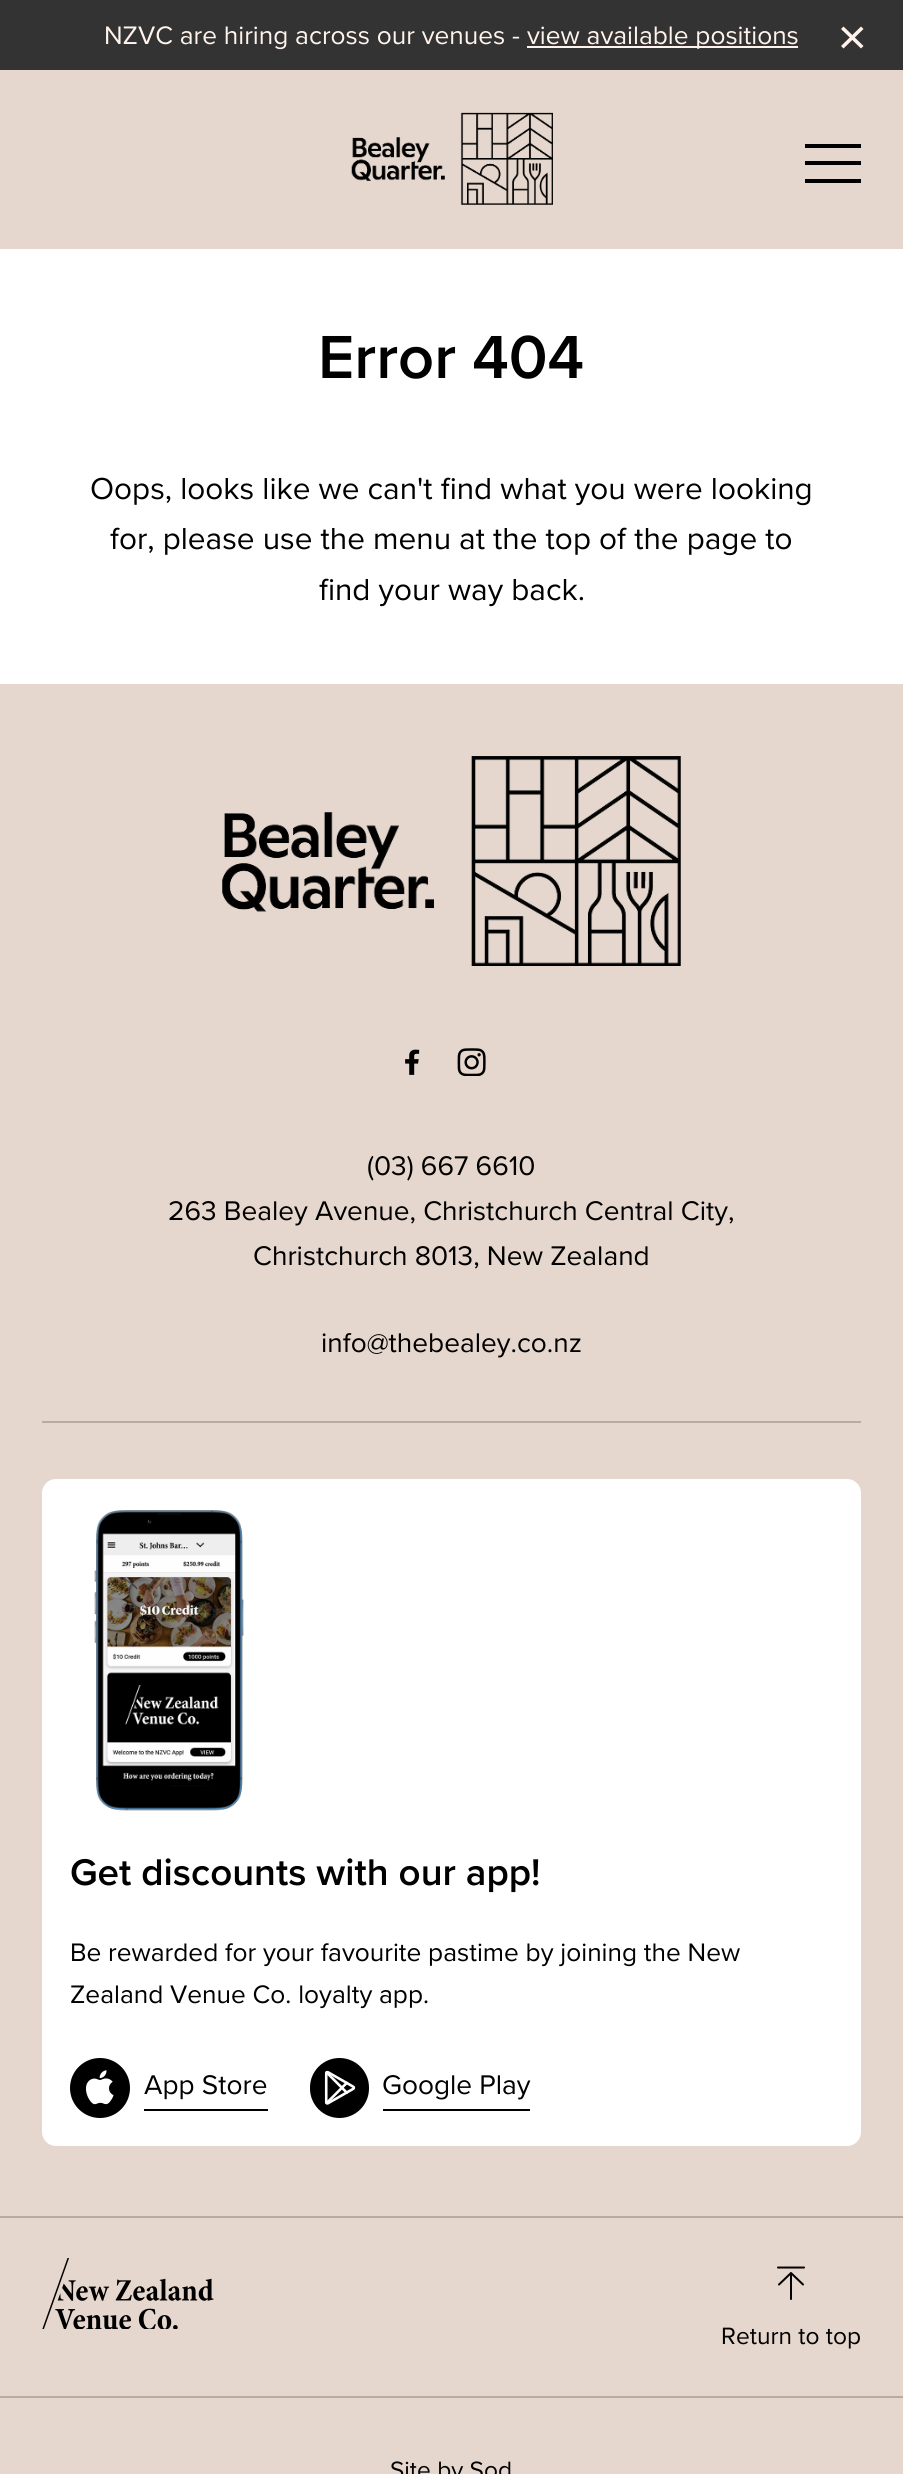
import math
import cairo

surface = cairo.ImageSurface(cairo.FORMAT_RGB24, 903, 2474)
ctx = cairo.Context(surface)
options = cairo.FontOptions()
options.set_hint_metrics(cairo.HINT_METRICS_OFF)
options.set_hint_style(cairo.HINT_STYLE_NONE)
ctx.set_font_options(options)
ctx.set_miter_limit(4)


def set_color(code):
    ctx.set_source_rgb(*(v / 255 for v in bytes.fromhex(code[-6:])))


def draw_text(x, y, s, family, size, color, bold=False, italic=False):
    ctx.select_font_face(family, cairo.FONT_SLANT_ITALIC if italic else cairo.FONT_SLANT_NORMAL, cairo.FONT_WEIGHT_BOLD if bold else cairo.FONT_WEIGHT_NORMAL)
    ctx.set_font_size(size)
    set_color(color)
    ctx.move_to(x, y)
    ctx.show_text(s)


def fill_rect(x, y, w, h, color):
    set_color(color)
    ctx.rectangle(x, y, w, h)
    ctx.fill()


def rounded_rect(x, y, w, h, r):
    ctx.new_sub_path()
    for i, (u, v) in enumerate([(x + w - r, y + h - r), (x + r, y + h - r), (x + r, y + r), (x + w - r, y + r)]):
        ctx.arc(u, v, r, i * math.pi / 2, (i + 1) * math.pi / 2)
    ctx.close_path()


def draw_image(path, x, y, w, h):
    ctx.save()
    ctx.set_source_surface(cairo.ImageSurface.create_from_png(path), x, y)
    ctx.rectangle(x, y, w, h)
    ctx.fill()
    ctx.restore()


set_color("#ffffff")
ctx.paint()
fill_rect(0, 0, 903, 70, "#333333")
draw_text(104, 44, "NZVC are hiring across our venues -", "Proxima Nova", 26.25, "#fff3ec")
fill_rect(527, 46, 271, 2, "#fff3ec")
draw_text(527, 44, "view available positions", "Proxima Nova", 26.25, "#fff3ec")
ctx.new_path()
ctx.move_to(843.5, 26.5)
ctx.line_to(863.5, 46)
ctx.line_to(861, 48.5)
ctx.line_to(841, 29)
ctx.close_path()
ctx.fill()
ctx.new_path()
ctx.move_to(841, 46)
ctx.line_to(861, 26.5)
ctx.line_to(863.5, 29)
ctx.line_to(843.5, 48.5)
ctx.close_path()
ctx.fill()
fill_rect(0, 70, 903, 179, "#e5d7cd")
draw_image("assets/img1.png", 351, 112, 202, 93)
fill_rect(805, 161, 56, 4, "#000000")
fill_rect(805, 144, 56, 4, "#000000")
fill_rect(805, 179, 56, 4, "#000000")
draw_text(318, 378, "Error 404", "Proxima Nova SemiBold", 63, "#000000")
draw_text(90, 499, "Oops, looks like we can't find what you were looking", "Proxima Nova", 31.5, "#000000")
draw_text(110, 549, "for, please use the menu at the top of the page to", "Proxima Nova", 31.5, "#000000")
draw_text(319, 600, "find your way back.", "Proxima Nova", 31.5, "#000000")
fill_rect(0, 684, 903, 1532, "#e5d7cd")
draw_image("assets/img2.png", 222, 756, 459, 210)
draw_image("assets/img3.png", 405, 1049, 15, 26)
draw_image("assets/img4.png", 457, 1048, 29, 28)
draw_text(367, 1175, "(03) 667 6610", "Proxima Nova", 28, "#000000")
draw_text(168, 1220, "263 Bealey Avenue, Christchurch Central City,", "Proxima Nova", 28, "#000000")
draw_text(253, 1265, "Christchurch 8013, New Zealand", "Proxima Nova", 28, "#000000")
draw_text(321, 1352, "info@thebealey.co.nz", "Proxima Nova", 28, "#000000")
fill_rect(42, 1421, 819, 2, "#b9aba1")
set_color("#ffffff")
rounded_rect(42, 1479, 819, 667, 14)
ctx.fill()
draw_image("assets/img5.png", 94, 1510, 150, 301)
draw_text(70, 1885, "Get discounts with our app!", "Proxima Nova SemiBold", 38.5, "#000000")
draw_text(70, 1961, "Be rewarded for your favourite pastime by joining the New", "Proxima Nova", 26.25, "#000000")
draw_text(70, 2003, "Zealand Venue Co. loyalty app.", "Proxima Nova", 26.25, "#000000")
ctx.new_path()
ctx.arc(100, 2088, 30, 0, 2 * math.pi)
ctx.fill()
draw_image("assets/img6.png", 86, 2070, 28, 35)
fill_rect(144, 2109, 124, 2, "#000000")
draw_text(144, 2094, "App Store", "Proxima Nova", 28, "#000000")
rounded_rect(310, 2058, 59, 60, 29.5)
ctx.fill()
draw_image("assets/img7.png", 324, 2070, 32, 35)
fill_rect(383, 2109, 147, 2, "#000000")
draw_text(382, 2094, "Google Play", "Proxima Nova", 28, "#000000")
fill_rect(0, 2218, 903, 256, "#e5d7cd")
fill_rect(0, 2216, 903, 2, "#b9aba1")
draw_image("assets/img8.png", 42, 2258, 172, 71)
ctx.new_path()
ctx.move_to(791, 2299)
ctx.line_to(791, 2273)
ctx.move_to(779, 2284.5)
ctx.line_to(791, 2273)
ctx.line_to(803, 2284.5)
ctx.move_to(778, 2267.5)
ctx.line_to(804, 2267.5)
set_color("#000000")
ctx.set_line_cap(cairo.LINE_CAP_ROUND)
ctx.set_line_join(cairo.LINE_JOIN_ROUND)
ctx.stroke()
draw_text(721, 2344, "Return to top", "Proxima Nova", 24.5, "#000000")
fill_rect(0, 2396, 903, 2, "#b9aba1")
draw_text(390, 2478, "Site by Sod", "Proxima Nova", 24.5, "#000000")
surface.write_to_png("output.png")
